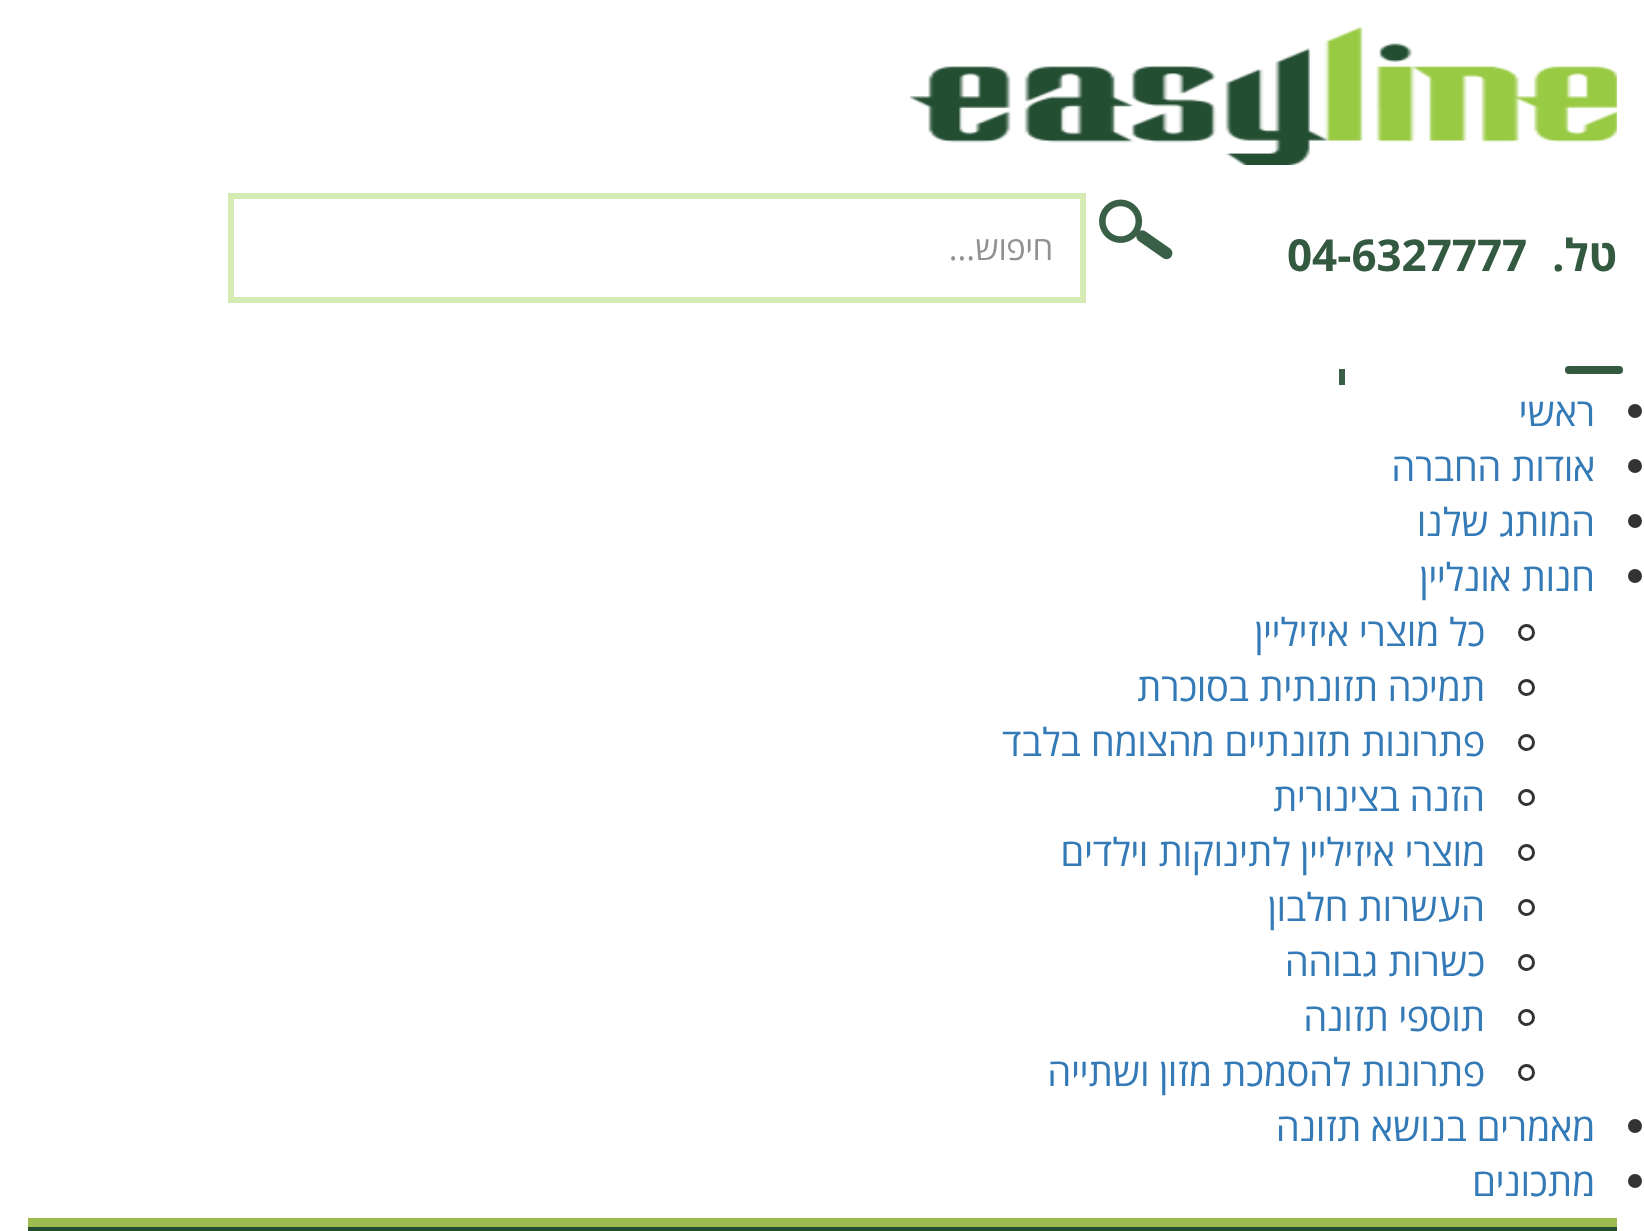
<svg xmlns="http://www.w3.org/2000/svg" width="1644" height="1231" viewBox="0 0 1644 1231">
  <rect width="100%" height="100%" fill="#ffffff"/>
  <image x="910" y="27" width="707" height="138" href="img1.png"/>
  <text x="1617" y="271" font-family="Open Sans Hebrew" font-size="44" font-weight="bold" direction="rtl" fill="#335940">טל.</text>
  <text x="1287" y="271" font-family="Open Sans Hebrew" font-size="44" font-weight="bold" fill="#335940">04-6327777</text>
  <image x="1099" y="199" width="74" height="61" href="img2.png"/>
  <rect x="231" y="196" width="852" height="104" fill="none" stroke="#d6eab4" stroke-width="6"/>
  <text x="1053" y="260" font-family="Open Sans Hebrew" font-size="33" direction="rtl" fill="#919191">חיפוש...</text>
  <rect x="1565" y="366" width="58" height="8" rx="4" fill="#335940"/>
  <rect x="1339" y="369" width="6" height="16" fill="#396047"/>
  <circle cx="1635" cy="411" r="7" fill="#333333"/>
  <text x="1595" y="426" font-family="Open Sans Hebrew" font-size="38.5" direction="rtl" fill="#337ab7">ראשי</text>
  <circle cx="1635" cy="466" r="7" fill="#333333"/>
  <text x="1595" y="481" font-family="Open Sans Hebrew" font-size="38.5" direction="rtl" fill="#337ab7">אודות החברה</text>
  <circle cx="1635" cy="521" r="7" fill="#333333"/>
  <text x="1595" y="536" font-family="Open Sans Hebrew" font-size="38.5" direction="rtl" fill="#337ab7">המותג שלנו</text>
  <circle cx="1635" cy="576" r="7" fill="#333333"/>
  <text x="1595" y="591" font-family="Open Sans Hebrew" font-size="38.5" direction="rtl" fill="#337ab7">חנות אונליין</text>
  <circle cx="1526.5" cy="632.5" r="7" fill="none" stroke="#333333" stroke-width="3"/>
  <text x="1485" y="646" font-family="Open Sans Hebrew" font-size="38.5" direction="rtl" fill="#337ab7">כל מוצרי איזיליין</text>
  <circle cx="1526.5" cy="687.5" r="7" fill="none" stroke="#333333" stroke-width="3"/>
  <text x="1485" y="701" font-family="Open Sans Hebrew" font-size="38.5" direction="rtl" fill="#337ab7">תמיכה תזונתית בסוכרת</text>
  <circle cx="1526.5" cy="742.5" r="7" fill="none" stroke="#333333" stroke-width="3"/>
  <text x="1485" y="756" font-family="Open Sans Hebrew" font-size="38.5" direction="rtl" fill="#337ab7">פתרונות תזונתיים מהצומח בלבד</text>
  <circle cx="1526.5" cy="797.5" r="7" fill="none" stroke="#333333" stroke-width="3"/>
  <text x="1485" y="811" font-family="Open Sans Hebrew" font-size="38.5" direction="rtl" fill="#337ab7">הזנה בצינורית</text>
  <circle cx="1526.5" cy="852.5" r="7" fill="none" stroke="#333333" stroke-width="3"/>
  <text x="1485" y="866" font-family="Open Sans Hebrew" font-size="38.5" direction="rtl" fill="#337ab7">מוצרי איזיליין לתינוקות וילדים</text>
  <circle cx="1526.5" cy="907.5" r="7" fill="none" stroke="#333333" stroke-width="3"/>
  <text x="1485" y="921" font-family="Open Sans Hebrew" font-size="38.5" direction="rtl" fill="#337ab7">העשרות חלבון</text>
  <circle cx="1526.5" cy="962.5" r="7" fill="none" stroke="#333333" stroke-width="3"/>
  <text x="1485" y="976" font-family="Open Sans Hebrew" font-size="38.5" direction="rtl" fill="#337ab7">כשרות גבוהה</text>
  <circle cx="1526.5" cy="1017.5" r="7" fill="none" stroke="#333333" stroke-width="3"/>
  <text x="1485" y="1031" font-family="Open Sans Hebrew" font-size="38.5" direction="rtl" fill="#337ab7">תוספי תזונה</text>
  <circle cx="1526.5" cy="1072.5" r="7" fill="none" stroke="#333333" stroke-width="3"/>
  <text x="1485" y="1086" font-family="Open Sans Hebrew" font-size="38.5" direction="rtl" fill="#337ab7">פתרונות להסמכת מזון ושתייה</text>
  <circle cx="1635" cy="1126" r="7" fill="#333333"/>
  <text x="1595" y="1141" font-family="Open Sans Hebrew" font-size="38.5" direction="rtl" fill="#337ab7">מאמרים בנושא תזונה</text>
  <circle cx="1635" cy="1181" r="7" fill="#333333"/>
  <text x="1595" y="1196" font-family="Open Sans Hebrew" font-size="38.5" direction="rtl" fill="#337ab7">מתכונים</text>
  <rect x="28" y="1218" width="1589" height="9" fill="#9dbb4f"/>
  <rect x="28" y="1227" width="1589" height="4" fill="#234e32"/>
</svg>
